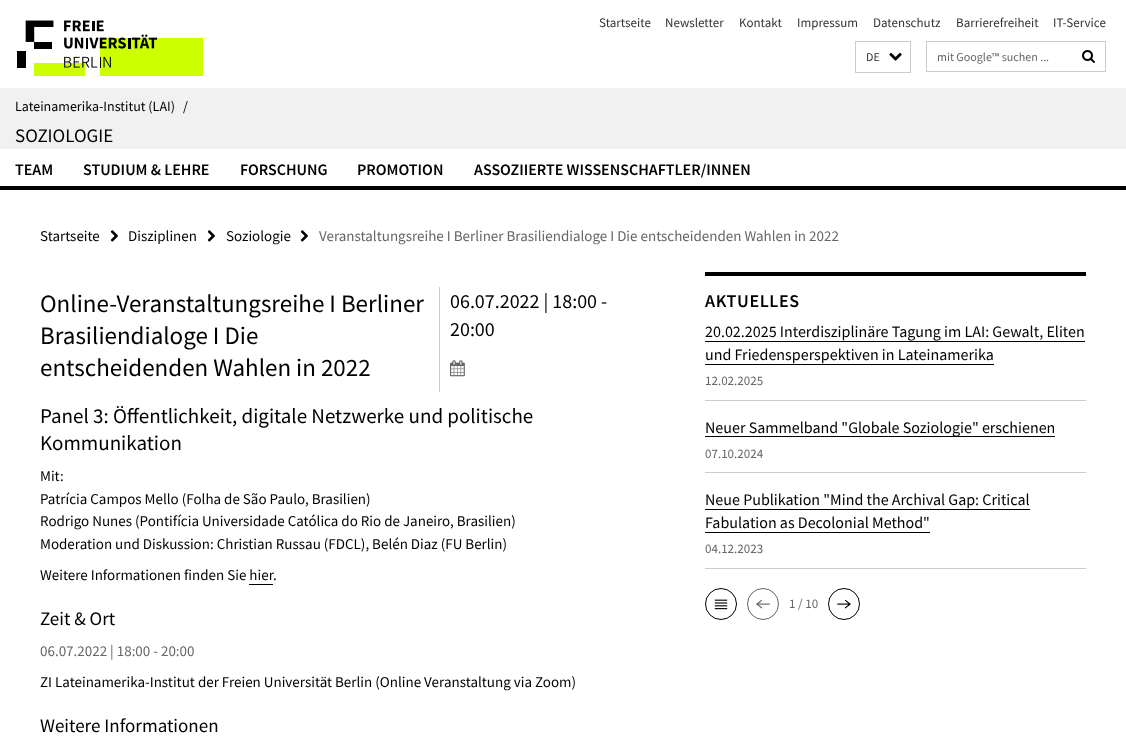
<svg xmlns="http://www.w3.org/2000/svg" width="1126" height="745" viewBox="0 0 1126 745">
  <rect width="100%" height="100%" fill="#ffffff"/>
  <image x="17" y="20" width="186" height="56" href="img1.png"/>
  <text x="599" y="27" font-family="Source Sans Pro" font-size="13" fill="#333333">Startseite</text>
  <text x="665" y="27" font-family="Source Sans Pro" font-size="13" fill="#333333">Newsletter</text>
  <text x="739" y="27" font-family="Source Sans Pro" font-size="13" fill="#333333">Kontakt</text>
  <text x="797" y="27" font-family="Source Sans Pro" font-size="13" fill="#333333">Impressum</text>
  <text x="873" y="27" font-family="Source Sans Pro" font-size="13" fill="#333333">Datenschutz</text>
  <text x="956" y="27" font-family="Source Sans Pro" font-size="13" fill="#333333">Barrierefreiheit</text>
  <text x="1053" y="27" font-family="Source Sans Pro" font-size="13" fill="#333333">IT-Service</text>
  <rect x="855.5" y="41.5" width="55" height="31" fill="none" stroke="#cccccc"/>
  <text x="866" y="61" font-family="Source Sans Pro" font-size="12" fill="#333333">DE</text>
  <image x="889" y="53" width="13" height="8" href="img2.png"/>
  <rect x="926.5" y="41.5" width="179" height="30" fill="none" stroke="#cccccc"/>
  <text x="937" y="61" font-family="Source Sans Pro" font-size="12" fill="#666666">mit Google™ suchen ...</text>
  <image x="1082" y="50" width="13" height="13" href="img3.png"/>
  <rect x="0" y="88" width="1126" height="61" fill="#f1f1f1"/>
  <text x="15" y="111" font-family="Source Sans Pro" font-size="14" fill="#000000">Lateinamerika-Institut (LAI)</text>
  <text x="183" y="111" font-family="Source Sans Pro" font-size="14" fill="#000000">/</text>
  <text x="15" y="142" font-family="Source Sans Pro" font-size="19" fill="#000000">SOZIOLOGIE</text>
  <rect x="0" y="186" width="1126" height="4" fill="#000000"/>
  <text x="15" y="175" font-family="Source Sans Pro" font-size="16" font-weight="600" fill="#000000">TEAM</text>
  <text x="83" y="175" font-family="Source Sans Pro" font-size="16" font-weight="600" fill="#000000">STUDIUM &amp; LEHRE</text>
  <text x="240" y="175" font-family="Source Sans Pro" font-size="16" font-weight="600" fill="#000000">FORSCHUNG</text>
  <text x="357" y="175" font-family="Source Sans Pro" font-size="16" font-weight="600" fill="#000000">PROMOTION</text>
  <text x="474" y="175" font-family="Source Sans Pro" font-size="16" font-weight="600" fill="#000000">ASSOZIIERTE WISSENSCHAFTLER/INNEN</text>
  <text x="40" y="241" font-family="Source Sans Pro" font-size="15" fill="#000000">Startseite</text>
  <image x="110" y="230" width="8" height="12" href="img4.png"/>
  <text x="128" y="241" font-family="Source Sans Pro" font-size="15" fill="#000000">Disziplinen</text>
  <image x="207" y="230" width="8" height="12" href="img4.png"/>
  <text x="226" y="241" font-family="Source Sans Pro" font-size="15" fill="#000000">Soziologie</text>
  <image x="300" y="230" width="8" height="12" href="img4.png"/>
  <text x="319" y="241" font-family="Source Sans Pro" font-size="15" fill="#666666">Veranstaltungsreihe I Berliner Brasiliendialoge I Die entscheidenden Wahlen in 2022</text>
  <rect x="439" y="287" width="1" height="105" fill="#cccccc"/>
  <text x="40" y="312" font-family="Source Sans Pro" font-size="25" fill="#000000">Online-Veranstaltungsreihe I Berliner</text>
  <text x="40" y="344" font-family="Source Sans Pro" font-size="25" fill="#000000">Brasiliendialoge I Die</text>
  <text x="40" y="376" font-family="Source Sans Pro" font-size="25" fill="#000000">entscheidenden Wahlen in 2022</text>
  <text x="450" y="308" font-family="Source Sans Pro" font-size="20" fill="#000000">06.07.2022 | 18:00 -</text>
  <text x="450" y="336" font-family="Source Sans Pro" font-size="20" fill="#000000">20:00</text>
  <image x="450" y="360" width="15" height="17" href="img5.png"/>
  <text x="40" y="423" font-family="Source Sans Pro" font-size="21" fill="#000000">Panel 3: Öffentlichkeit, digitale Netzwerke und politische</text>
  <text x="40" y="450" font-family="Source Sans Pro" font-size="21" fill="#000000">Kommunikation</text>
  <text x="40" y="481" font-family="Source Sans Pro" font-size="15" fill="#000000">Mit:</text>
  <text x="40" y="504" font-family="Source Sans Pro" font-size="15" fill="#000000">Patrícia Campos Mello (Folha de São Paulo, Brasilien)</text>
  <text x="40" y="526" font-family="Source Sans Pro" font-size="15" fill="#000000">Rodrigo Nunes (Pontifícia Universidade Católica do Rio de Janeiro, Brasilien)</text>
  <text x="40" y="549" font-family="Source Sans Pro" font-size="15" fill="#000000">Moderation und Diskussion: Christian Russau (FDCL), Belén Diaz (FU Berlin)</text>
  <text x="40" y="580" font-family="Source Sans Pro" font-size="15" fill="#000000">Weitere Informationen finden Sie hier</text>
  <text x="273" y="580" font-family="Source Sans Pro" font-size="15" fill="#000000">.</text>
  <rect x="249" y="584" width="24" height="1" fill="#000000"/>
  <text x="40" y="625" font-family="Source Sans Pro" font-size="19" fill="#000000">Zeit &amp; Ort</text>
  <text x="40" y="656" font-family="Source Sans Pro" font-size="15" fill="#666666">06.07.2022 | 18:00 - 20:00</text>
  <text x="40" y="687" font-family="Source Sans Pro" font-size="15" fill="#000000">ZI Lateinamerika-Institut der Freien Universität Berlin (Online Veranstaltung via Zoom)</text>
  <text x="40" y="732" font-family="Source Sans Pro" font-size="19" fill="#000000">Weitere Informationen</text>
  <rect x="705" y="272" width="381" height="4" fill="#000000"/>
  <text x="705" y="307" font-family="Source Sans Pro" font-size="18" font-weight="600" letter-spacing="0.6" fill="#000000">AKTUELLES</text>
  <rect x="705" y="400" width="381" height="1" fill="#cccccc"/>
  <text x="705" y="337" font-family="Source Sans Pro" font-size="16" fill="#000000">20.02.2025 Interdisziplinäre Tagung im LAI: Gewalt, Eliten</text>
  <rect x="705" y="341" width="380" height="1" fill="#000000"/>
  <text x="705" y="360" font-family="Source Sans Pro" font-size="16" fill="#000000">und Friedensperspektiven in Lateinamerika</text>
  <rect x="705" y="364" width="289" height="1" fill="#000000"/>
  <text x="705" y="385" font-family="Source Sans Pro" font-size="13" fill="#666666">12.02.2025</text>
  <rect x="705" y="472" width="381" height="1" fill="#cccccc"/>
  <rect x="705" y="436" width="350" height="1" fill="#000000"/>
  <text x="705" y="433" font-family="Source Sans Pro" font-size="16" fill="#000000">Neuer Sammelband "Globale Soziologie" erschienen</text>
  <text x="705" y="458" font-family="Source Sans Pro" font-size="13" fill="#666666">07.10.2024</text>
  <rect x="705" y="568" width="381" height="1" fill="#cccccc"/>
  <text x="705" y="505" font-family="Source Sans Pro" font-size="16" fill="#000000">Neue Publikation "Mind the Archival Gap: Critical</text>
  <rect x="705" y="509" width="325" height="1" fill="#000000"/>
  <text x="705" y="528" font-family="Source Sans Pro" font-size="16" fill="#000000">Fabulation as Decolonial Method"</text>
  <rect x="705" y="532" width="225" height="1" fill="#000000"/>
  <text x="705" y="553" font-family="Source Sans Pro" font-size="13" fill="#666666">04.12.2023</text>
  <circle cx="721" cy="604" r="15.5" fill="none" stroke="#000000"/>
  <image x="714" y="599" width="14" height="11" href="img6.png"/>
  <circle cx="763" cy="604" r="15.5" fill="none" stroke="#666666"/>
  <image x="756" y="599" width="14" height="10" href="img7.png"/>
  <text x="789" y="608" font-family="Source Sans Pro" font-size="13" fill="#666666">1 / 10</text>
  <circle cx="844" cy="604" r="15.5" fill="none" stroke="#000000"/>
  <image x="837" y="599" width="14" height="10" href="img8.png"/>
</svg>
